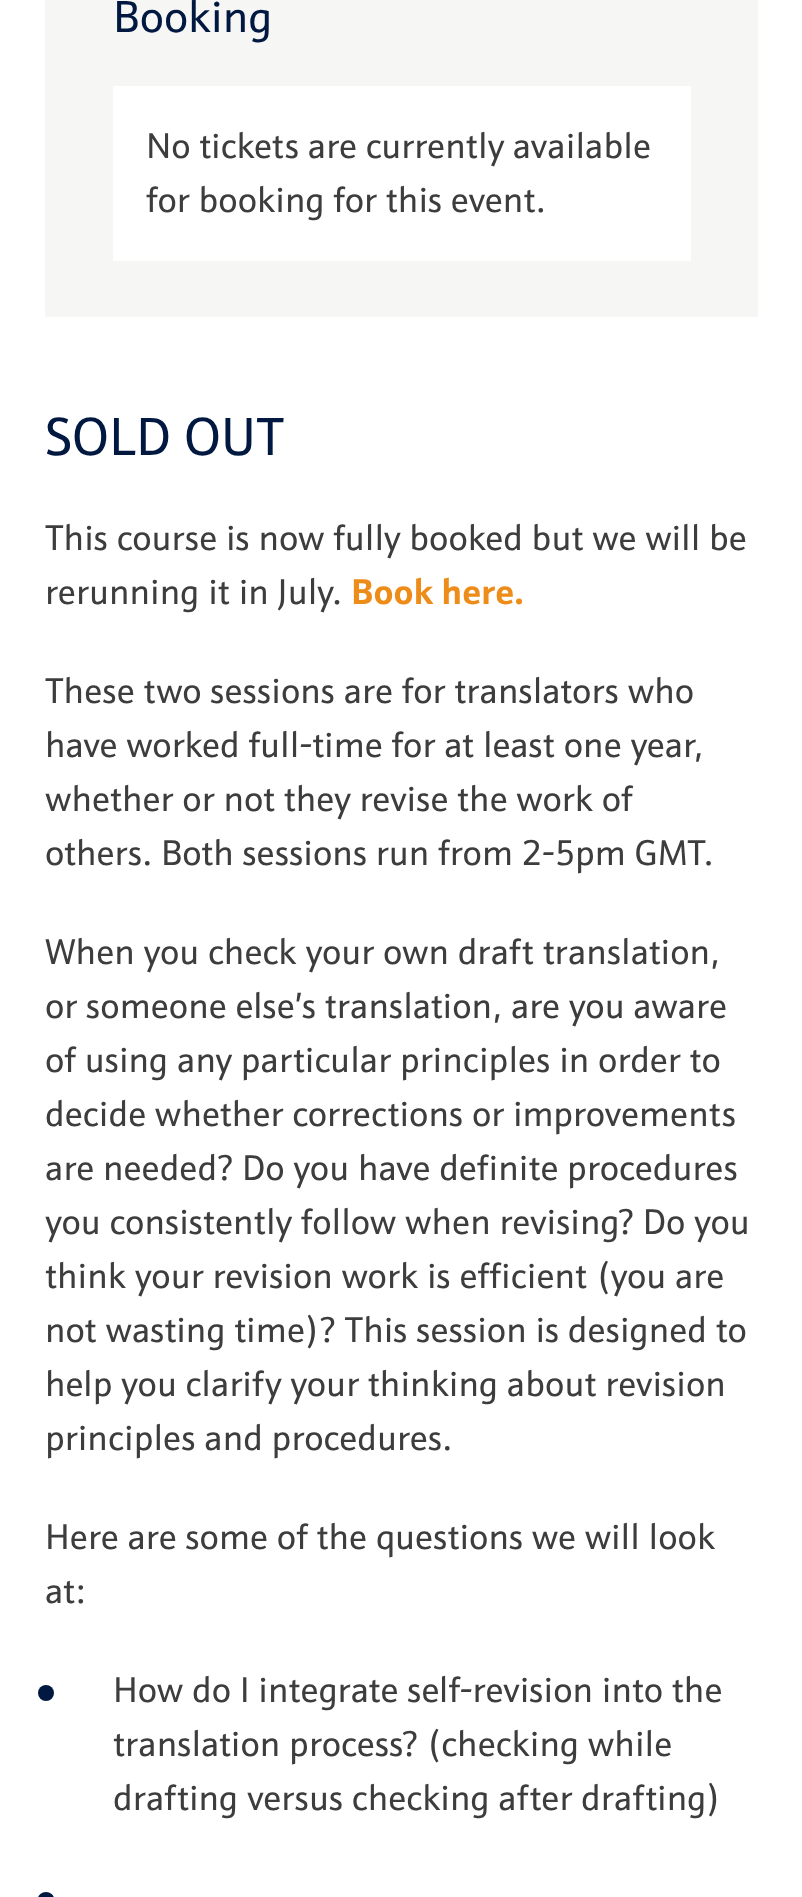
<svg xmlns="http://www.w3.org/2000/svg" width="802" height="1897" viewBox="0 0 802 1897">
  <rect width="100%" height="100%" fill="#ffffff"/>
  <rect x="45" y="0" width="713" height="317" fill="#f6f7f5"/>
  <text x="113" y="32" font-family="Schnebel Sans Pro" font-size="45" fill="#011841">Booking</text>
  <rect x="113" y="86" width="578" height="175" fill="#ffffff"/>
  <text x="146" y="158" font-family="Schnebel Sans Pro" font-size="36" fill="#3d3d3d">No tickets are currently available</text>
  <text x="146" y="212" font-family="Schnebel Sans Pro" font-size="36" fill="#3d3d3d">for booking for this event.</text>
  <text x="45" y="455" font-family="Schnebel Sans Pro" font-size="54" fill="#011841">SOLD OUT</text>
  <text x="45" y="550" font-family="Schnebel Sans Pro" font-size="36" fill="#3d3d3d">This course is now fully booked but we will be</text>
  <text x="45" y="604" font-family="Schnebel Sans Pro" font-size="36" fill="#3d3d3d">rerunning it in July.</text>
  <text x="351" y="604" font-family="Schnebel Sans Pro" font-size="36" font-weight="bold" fill="#ed8c18">Book here.</text>
  <text x="45" y="703" font-family="Schnebel Sans Pro" font-size="36" fill="#3d3d3d">These two sessions are for translators who</text>
  <text x="45" y="757" font-family="Schnebel Sans Pro" font-size="36" fill="#3d3d3d">have worked full-time for at least one year,</text>
  <text x="45" y="811" font-family="Schnebel Sans Pro" font-size="36" fill="#3d3d3d">whether or not they revise the work of</text>
  <text x="45" y="865" font-family="Schnebel Sans Pro" font-size="36" fill="#3d3d3d">others. Both sessions run from 2-5pm GMT.</text>
  <text x="45" y="964" font-family="Schnebel Sans Pro" font-size="36" fill="#3d3d3d">When you check your own draft translation,</text>
  <text x="45" y="1018" font-family="Schnebel Sans Pro" font-size="36" fill="#3d3d3d">or someone else’s translation, are you aware</text>
  <text x="45" y="1072" font-family="Schnebel Sans Pro" font-size="36" fill="#3d3d3d">of using any particular principles in order to</text>
  <text x="45" y="1126" font-family="Schnebel Sans Pro" font-size="36" fill="#3d3d3d">decide whether corrections or improvements</text>
  <text x="45" y="1180" font-family="Schnebel Sans Pro" font-size="36" fill="#3d3d3d">are needed? Do you have definite procedures</text>
  <text x="45" y="1234" font-family="Schnebel Sans Pro" font-size="36" fill="#3d3d3d">you consistently follow when revising? Do you</text>
  <text x="45" y="1288" font-family="Schnebel Sans Pro" font-size="36" fill="#3d3d3d">think your revision work is efficient (you are</text>
  <text x="45" y="1342" font-family="Schnebel Sans Pro" font-size="36" fill="#3d3d3d">not wasting time)? This session is designed to</text>
  <text x="45" y="1396" font-family="Schnebel Sans Pro" font-size="36" fill="#3d3d3d">help you clarify your thinking about revision</text>
  <text x="45" y="1450" font-family="Schnebel Sans Pro" font-size="36" fill="#3d3d3d">principles and procedures.</text>
  <text x="45" y="1549" font-family="Schnebel Sans Pro" font-size="36" fill="#3d3d3d">Here are some of the questions we will look</text>
  <text x="45" y="1603" font-family="Schnebel Sans Pro" font-size="36" fill="#3d3d3d">at:</text>
  <circle cx="46" cy="1693" r="8" fill="#011841"/>
  <text x="113" y="1702" font-family="Schnebel Sans Pro" font-size="36" fill="#3d3d3d">How do I integrate self-revision into the</text>
  <text x="113" y="1756" font-family="Schnebel Sans Pro" font-size="36" fill="#3d3d3d">translation process? (checking while</text>
  <text x="113" y="1810" font-family="Schnebel Sans Pro" font-size="36" fill="#3d3d3d">drafting versus checking after drafting)</text>
  <rect x="38" y="1892" width="16" height="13" rx="8" fill="#011841"/>
</svg>
